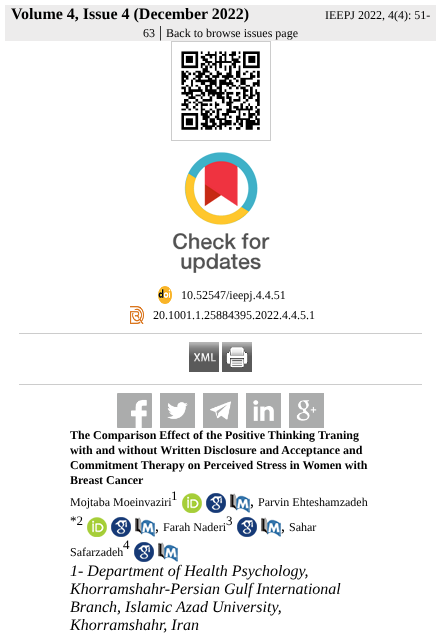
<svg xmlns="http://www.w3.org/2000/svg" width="441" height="644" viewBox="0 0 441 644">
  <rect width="100%" height="100%" fill="#ffffff"/>
  <rect x="5" y="5" width="431" height="36" fill="#edecec"/>
  <text x="11" y="19" font-family="Liberation Serif" font-size="16" font-weight="bold" fill="#000000">Volume 4, Issue 4 (December 2022)</text>
  <text x="325" y="19" font-family="Liberation Serif" font-size="12" fill="#000000">IEEPJ 2022, 4(4): 51-</text>
  <text x="143" y="37" font-family="Liberation Serif" font-size="12" fill="#000000">63</text>
  <text x="159" y="37" font-family="Liberation Serif" font-size="16" fill="#000000">|</text>
  <text x="166" y="37" font-family="Liberation Serif" font-size="12" fill="#000000">Back to browse issues page</text>
  <rect x="171.5" y="41.5" width="99" height="99" fill="none" stroke="#cccccc"/>
  <image x="181" y="51" width="79" height="79" href="img1.png"/>
  <image x="172" y="152" width="98" height="121" href="img2.png"/>
  <image x="158" y="286" width="14" height="18" href="img3.png"/>
  <text x="181" y="299" font-family="Liberation Serif" font-size="12" fill="#000000">10.52547/ieepj.4.4.51</text>
  <image x="130" y="306" width="14" height="18" href="img4.png"/>
  <text x="153" y="319" font-family="Liberation Serif" font-size="12" fill="#000000">20.1001.1.25884395.2022.4.4.5.1</text>
  <rect x="19" y="333" width="403" height="1" fill="#cccccc"/>
  <image x="189" y="342" width="30" height="30" href="img5.png"/>
  <image x="222" y="342" width="30" height="30" href="img6.png"/>
  <rect x="19" y="384" width="403" height="1" fill="#cccccc"/>
  <image x="117" y="393" width="35" height="35" href="img7.png"/>
  <image x="160" y="393" width="35" height="35" href="img8.png"/>
  <image x="203" y="393" width="35" height="35" href="img9.png"/>
  <image x="246" y="393" width="35" height="35" href="img10.png"/>
  <image x="289" y="393" width="35" height="35" href="img11.png"/>
  <text x="70" y="439" font-family="Liberation Serif" font-size="12" font-weight="bold" fill="#000000">The Comparison Effect of the Positive Thinking Traning</text>
  <text x="70" y="454" font-family="Liberation Serif" font-size="12" font-weight="bold" fill="#000000">with and without Written Disclosure and Acceptance and</text>
  <text x="70" y="469" font-family="Liberation Serif" font-size="12" font-weight="bold" fill="#000000">Commitment Therapy on Perceived Stress in Women with</text>
  <text x="70" y="484" font-family="Liberation Serif" font-size="12" font-weight="bold" fill="#000000">Breast Cancer</text>
  <text x="70" y="506" font-family="Liberation Serif" font-size="12" fill="#000000">Mojtaba Moeinvaziri</text>
  <text x="171" y="500" font-family="Liberation Serif" font-size="13" fill="#000000">1</text>
  <image x="182" y="493" width="20" height="20" href="img12.png"/>
  <image x="206" y="493" width="20" height="20" href="img13.png"/>
  <image x="230" y="493" width="20" height="20" href="img14.png"/>
  <text x="250" y="506" font-family="Liberation Serif" font-size="16" fill="#000000">,</text>
  <text x="258" y="506" font-family="Liberation Serif" font-size="12" fill="#000000">Parvin Ehteshamzadeh</text>
  <text x="70" y="525" font-family="Liberation Serif" font-size="13" fill="#000000">*2</text>
  <image x="87" y="517" width="20" height="20" href="img12.png"/>
  <image x="111" y="517" width="20" height="20" href="img13.png"/>
  <image x="135" y="517" width="20" height="20" href="img14.png"/>
  <text x="155" y="531" font-family="Liberation Serif" font-size="16" fill="#000000">,</text>
  <text x="163" y="531" font-family="Liberation Serif" font-size="12" fill="#000000">Farah Naderi</text>
  <text x="226" y="525" font-family="Liberation Serif" font-size="13" fill="#000000">3</text>
  <image x="237" y="517" width="20" height="20" href="img13.png"/>
  <image x="261" y="517" width="20" height="20" href="img14.png"/>
  <text x="281" y="531" font-family="Liberation Serif" font-size="16" fill="#000000">,</text>
  <text x="289" y="531" font-family="Liberation Serif" font-size="12" fill="#000000">Sahar</text>
  <text x="70" y="556" font-family="Liberation Serif" font-size="12" fill="#000000">Safarzadeh</text>
  <text x="123" y="549" font-family="Liberation Serif" font-size="13" fill="#000000">4</text>
  <image x="134" y="542" width="20" height="20" href="img13.png"/>
  <image x="158" y="542" width="20" height="20" href="img14.png"/>
  <text x="70" y="576" font-family="Liberation Serif" font-size="16" font-style="italic" fill="#000000">1- Department of Health Psychology,</text>
  <text x="70" y="594" font-family="Liberation Serif" font-size="16" font-style="italic" fill="#000000">Khorramshahr-Persian Gulf International</text>
  <text x="70" y="612" font-family="Liberation Serif" font-size="16" font-style="italic" fill="#000000">Branch, Islamic Azad University,</text>
  <text x="70" y="630" font-family="Liberation Serif" font-size="16" font-style="italic" fill="#000000">Khorramshahr, Iran</text>
</svg>
